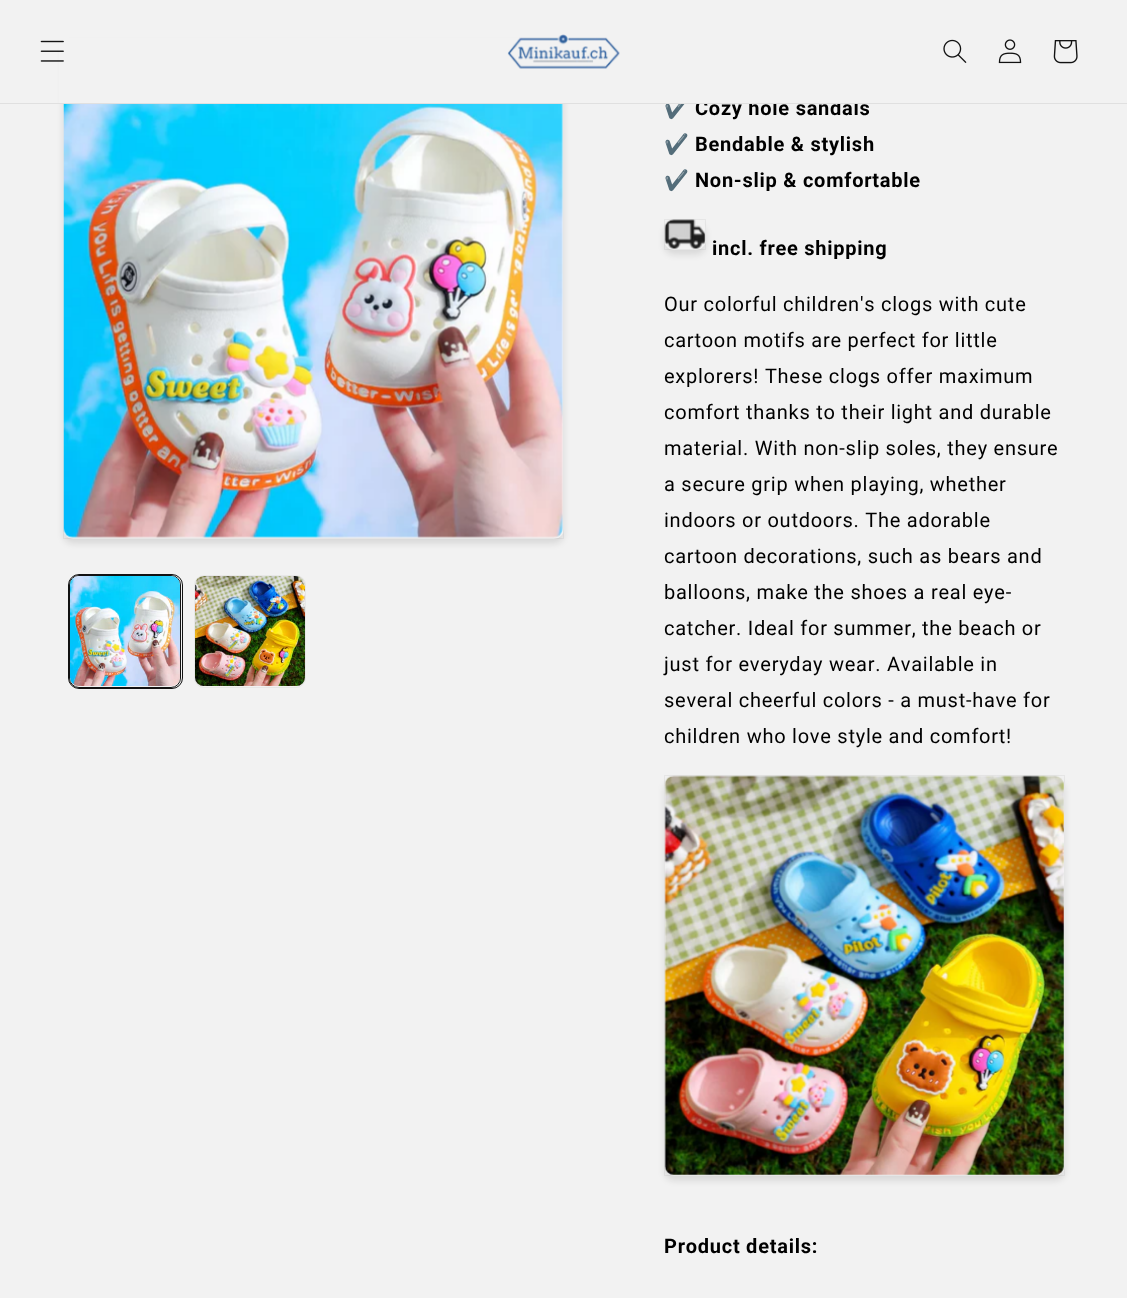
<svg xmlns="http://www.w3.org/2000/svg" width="1127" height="1298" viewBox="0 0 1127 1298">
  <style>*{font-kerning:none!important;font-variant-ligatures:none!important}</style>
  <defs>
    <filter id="blur1" x="-50%" y="-200%" width="200%" height="500%"><feGaussianBlur stdDeviation="3"/></filter>
    <clipPath id="clip1"><path d="M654 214H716V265H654ZM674 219H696C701.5 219 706 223.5 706 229V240C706 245.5 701.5 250 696 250H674C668.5 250 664 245.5 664 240V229C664 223.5 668.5 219 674 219Z" clip-rule="evenodd"/></clipPath>
    <clipPath id="clip2"><path d="M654 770H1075V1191H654ZM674 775H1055C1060.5 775 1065 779.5 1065 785V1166C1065 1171.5 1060.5 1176 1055 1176H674C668.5 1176 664 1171.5 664 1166V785C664 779.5 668.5 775 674 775Z" clip-rule="evenodd"/></clipPath>
  </defs>
  <rect width="100%" height="100%" fill="#f2f2f2"/>
  <rect x="63" y="43" width="501" height="501" rx="10" fill="#121212" fill-opacity="0.1" filter="url(#blur1)"/>
  <rect x="63" y="38" width="501" height="501" rx="10" fill="#f2f2f2"/>
  <rect x="63.5" y="38.5" width="500" height="500" fill="none" stroke="#121212" stroke-opacity="0.05"/>
  <text x="664" y="115" font-family="Noto Color Emoji" font-size="20" font-weight="bold" letter-spacing="0.75" fill="#c86c59">✔</text>
  <text x="695" y="115" font-family="Roboto" font-size="20" font-weight="bold" letter-spacing="0.75" fill="#000000">Cozy hole sandals</text>
  <rect x="59" y="38" width="799" height="65" fill="#f2f2f2"/>
  <rect x="0" y="103" width="1127" height="1" fill="#e0e0e0"/>
  <image x="40" y="40" width="24" height="22" href="img1.png"/>
  <image x="507" y="34" width="113" height="35" href="img2.png"/>
  <image x="943" y="39" width="24" height="24" href="img3.png"/>
  <image x="998" y="39" width="24" height="25" href="img4.png"/>
  <image x="1053" y="40" width="25" height="24" href="img5.png"/>
  <image x="63" y="104" width="500" height="434" href="img6.png"/>
  <rect x="68.5" y="574.5" width="114" height="114" rx="10.5" fill="none" stroke="#121212"/>
  <rect x="69.5" y="575.5" width="111" height="112" rx="9.5" fill="none" stroke="#121212"/>
  <image x="70" y="576" width="110" height="110" href="img7.png"/>
  <rect x="194.5" y="575.5" width="111" height="112" rx="9.5" fill="none" stroke="#e7e7e7"/>
  <image x="195" y="576" width="110" height="110" href="img8.png"/>
  <text x="664" y="151" font-family="Noto Color Emoji" font-size="20" font-weight="bold" letter-spacing="0.75" fill="#ff2a00">✔</text>
  <text x="695" y="151" font-family="Roboto" font-size="20" font-weight="bold" letter-spacing="0.75" fill="#000000">Bendable &amp; stylish</text>
  <text x="664" y="187" font-family="Noto Color Emoji" font-size="20" font-weight="bold" letter-spacing="0.75" fill="#ff2a00">✔</text>
  <text x="695" y="187" font-family="Roboto" font-size="20" font-weight="bold" letter-spacing="0.75" fill="#000000">Non-slip &amp; comfortable</text>
  <g clip-path="url(#clip1)">
    <rect x="664" y="224" width="42" height="31" rx="10" fill="#121212" fill-opacity="0.1" filter="url(#blur1)"/>
  </g>
  <rect x="664.5" y="219.5" width="41" height="30" fill="none" stroke="#121212" stroke-opacity="0.05"/>
  <image x="664" y="219" width="42" height="30" href="img9.png"/>
  <text x="712" y="255" font-family="Roboto" font-size="20" font-weight="bold" letter-spacing="0.75" fill="#000000">incl. free shipping</text>
  <text x="664" y="311" font-family="Roboto" font-size="20" letter-spacing="0.75" fill="#000000">Our colorful children's clogs with cute</text>
  <text x="664" y="347" font-family="Roboto" font-size="20" letter-spacing="0.75" fill="#000000">cartoon motifs are perfect for little</text>
  <text x="664" y="383" font-family="Roboto" font-size="20" letter-spacing="0.75" fill="#000000">explorers! These clogs offer maximum</text>
  <text x="664" y="419" font-family="Roboto" font-size="20" letter-spacing="0.75" fill="#000000">comfort thanks to their light and durable</text>
  <text x="664" y="455" font-family="Roboto" font-size="20" letter-spacing="0.75" fill="#000000">material. With non-slip soles, they ensure</text>
  <text x="664" y="491" font-family="Roboto" font-size="20" letter-spacing="0.75" fill="#000000">a secure grip when playing, whether</text>
  <text x="664" y="527" font-family="Roboto" font-size="20" letter-spacing="0.75" fill="#000000">indoors or outdoors. The adorable</text>
  <text x="664" y="563" font-family="Roboto" font-size="20" letter-spacing="0.75" fill="#000000">cartoon decorations, such as bears and</text>
  <text x="664" y="599" font-family="Roboto" font-size="20" letter-spacing="0.75" fill="#000000">balloons, make the shoes a real eye-</text>
  <text x="664" y="635" font-family="Roboto" font-size="20" letter-spacing="0.75" fill="#000000">catcher. Ideal for summer, the beach or</text>
  <text x="664" y="671" font-family="Roboto" font-size="20" letter-spacing="0.75" fill="#000000">just for everyday wear. Available in</text>
  <text x="664" y="707" font-family="Roboto" font-size="20" letter-spacing="0.75" fill="#000000">several cheerful colors - a must-have for</text>
  <text x="664" y="743" font-family="Roboto" font-size="20" letter-spacing="0.75" fill="#000000">children who love style and comfort!</text>
  <g clip-path="url(#clip2)">
    <rect x="664" y="780" width="401" height="401" rx="10" fill="#121212" fill-opacity="0.1" filter="url(#blur1)"/>
  </g>
  <rect x="664.5" y="775.5" width="400" height="400" fill="none" stroke="#121212" stroke-opacity="0.05"/>
  <image x="664" y="775" width="400" height="400" href="img10.png"/>
  <text x="664" y="1253" font-family="Roboto" font-size="20" font-weight="bold" letter-spacing="0.75" fill="#000000">Product details:</text>
</svg>
